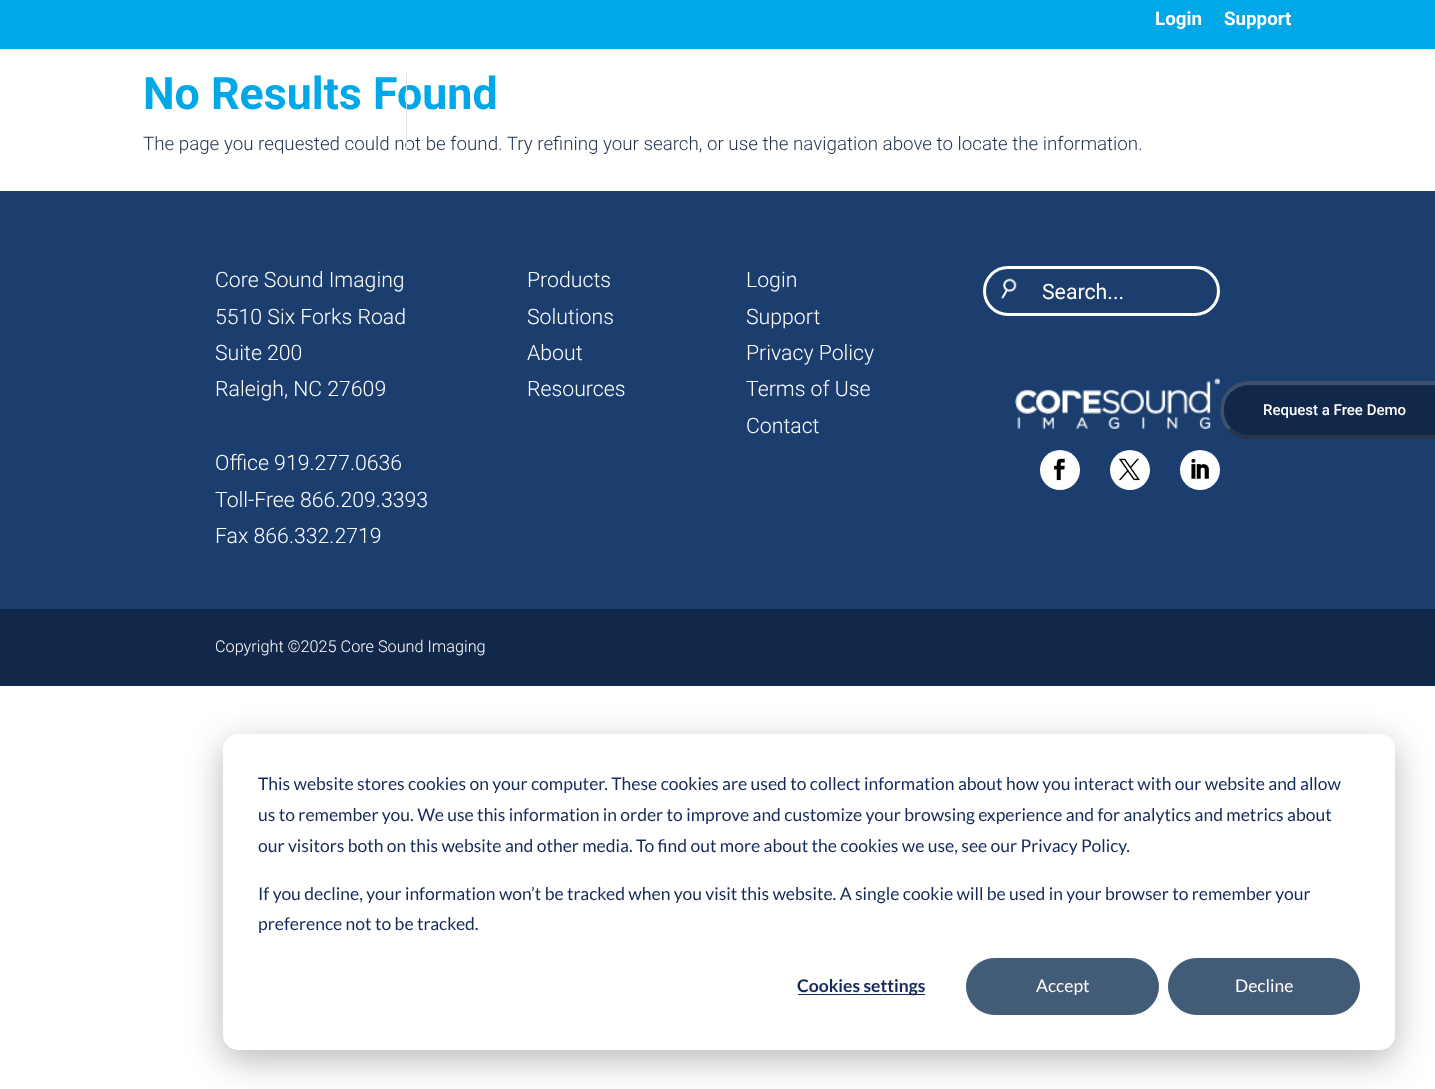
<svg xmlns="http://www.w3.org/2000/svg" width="1435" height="1089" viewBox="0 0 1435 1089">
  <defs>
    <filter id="blur1" x="-50%" y="-200%" width="200%" height="500%"><feGaussianBlur stdDeviation="17.5"/></filter>
  </defs>
  <rect width="100%" height="100%" fill="#ffffff"/>
  <rect x="0" y="0" width="1435" height="49" fill="#00a8e7"/>
  <text x="1155" y="25" font-family="Roboto" font-size="18.75" font-weight="bold" fill="#ffffff">Login</text>
  <text x="1224" y="25" font-family="Roboto" font-size="18.75" font-weight="bold" fill="#ffffff">Support</text>
  <text x="143" y="109" font-family="Roboto" font-size="44.75" font-weight="bold" fill="#00a8e7">No Results Found</text>
  <text x="143" y="150" font-family="Roboto" font-size="18.75" font-weight="300" fill="#1e2f4c">The page you requested could not be found. Try refining your search, or use the navigation above to locate the information.</text>
  <rect x="406" y="73" width="1" height="78" fill="#e2e2e2"/>
  <rect x="0" y="191" width="1435" height="418" fill="#1b3e6f"/>
  <text x="215" y="287" font-family="Roboto" font-size="21.25" font-weight="300" fill="#ffffff">Core Sound Imaging</text>
  <text x="215" y="324" font-family="Roboto" font-size="21.25" font-weight="300" fill="#ffffff">5510 Six Forks Road</text>
  <text x="215" y="360" font-family="Roboto" font-size="21.25" font-weight="300" fill="#ffffff">Suite 200</text>
  <text x="215" y="396" font-family="Roboto" font-size="21.25" font-weight="300" fill="#ffffff">Raleigh, NC 27609</text>
  <text x="215" y="470" font-family="Roboto" font-size="21.25" font-weight="300" fill="#ffffff">Office 919.277.0636</text>
  <text x="215" y="507" font-family="Roboto" font-size="21.25" font-weight="300" fill="#ffffff">Toll-Free 866.209.3393</text>
  <text x="215" y="543" font-family="Roboto" font-size="21.25" font-weight="300" fill="#ffffff">Fax 866.332.2719</text>
  <text x="527" y="287" font-family="Roboto" font-size="21.25" font-weight="300" fill="#ffffff">Products</text>
  <text x="527" y="324" font-family="Roboto" font-size="21.25" font-weight="300" fill="#ffffff">Solutions</text>
  <text x="527" y="360" font-family="Roboto" font-size="21.25" font-weight="300" fill="#ffffff">About</text>
  <text x="527" y="396" font-family="Roboto" font-size="21.25" font-weight="300" fill="#ffffff">Resources</text>
  <text x="746" y="287" font-family="Roboto" font-size="21.25" font-weight="300" fill="#ffffff">Login</text>
  <text x="746" y="324" font-family="Roboto" font-size="21.25" font-weight="300" fill="#ffffff">Support</text>
  <text x="746" y="360" font-family="Roboto" font-size="21.25" font-weight="300" fill="#ffffff">Privacy Policy</text>
  <text x="746" y="396" font-family="Roboto" font-size="21.25" font-weight="300" fill="#ffffff">Terms of Use</text>
  <text x="746" y="433" font-family="Roboto" font-size="21.25" font-weight="300" fill="#ffffff">Contact</text>
  <rect x="984.5" y="267.5" width="234" height="47" rx="23.5" fill="none" stroke="#ffffff" stroke-width="3"/>
  <image x="1001" y="278" width="16" height="21" href="img1.png"/>
  <text x="1042" y="299" font-family="Roboto" font-size="21.25" fill="#ffffff">Search...</text>
  <image x="1015" y="378" width="205" height="51" href="img2.png"/>
  <circle cx="1060" cy="470" r="20" fill="#ffffff"/>
  <image x="1054" y="458" width="11" height="23" href="img3.png"/>
  <circle cx="1130" cy="470" r="20" fill="#ffffff"/>
  <image x="1118" y="458" width="22" height="23" href="img4.png"/>
  <circle cx="1200" cy="470" r="20" fill="#ffffff"/>
  <image x="1191" y="458" width="18" height="21" href="img5.png"/>
  <rect x="0" y="609" width="1435" height="77" fill="#11284b"/>
  <text x="215" y="652" font-family="Roboto" font-size="16.25" font-weight="300" fill="#ffffff">Copyright ©2025 Core Sound Imaging</text>
  <rect x="1220" y="381" width="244" height="58" rx="29" fill="#11284b"/>
  <path d="M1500.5 391C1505.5 396 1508 403 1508 410C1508 417 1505.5 424 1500.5 429C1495 434 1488.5 437 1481 437H1249C1241.5 437 1235 434 1229.5 429" fill="none" stroke="#293649" stroke-width="3.8"/>
  <path d="M1229.5 429C1224.5 424 1222 417 1222 410C1222 403 1224.5 396 1229.5 391C1235 386 1241.5 383 1249 383H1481C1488.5 383 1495 386 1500.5 391" fill="none" stroke="#3e516d" stroke-width="3.8"/>
  <text x="1263" y="415" font-family="Roboto" font-size="15" font-weight="500" fill="#ffffff">Request a Free Demo</text>
  <rect x="223" y="744" width="1172" height="316" rx="15" fill="#000000" fill-opacity="0.28" filter="url(#blur1)"/>
  <rect x="223" y="734" width="1172" height="316" rx="15" fill="#ffffff"/>
  <text x="258" y="790" font-family="Lato" font-size="17.5" fill="#15295a">This website stores cookies on your computer. These cookies are used to collect information about how you interact with our website and allow</text>
  <text x="258" y="821" font-family="Lato" font-size="17.5" fill="#15295a">us to remember you. We use this information in order to improve and customize your browsing experience and for analytics and metrics about</text>
  <text x="258" y="852" font-family="Lato" font-size="17.5" fill="#15295a">our visitors both on this website and other media. To find out more about the cookies we use, see our Privacy Policy.</text>
  <text x="258" y="900" font-family="Lato" font-size="17.5" fill="#15295a">If you decline, your information won’t be tracked when you visit this website. A single cookie will be used in your browser to remember your</text>
  <text x="258" y="930" font-family="Lato" font-size="17.5" fill="#15295a">preference not to be tracked.</text>
  <rect x="798" y="994" width="127" height="1" fill="#15295a"/>
  <text x="797" y="992" font-family="Lato" font-size="17.5" font-weight="bold" fill="#15295a">Cookies settings</text>
  <rect x="966.5" y="958.5" width="192" height="56" rx="28" fill="#425b76" stroke="#425b76"/>
  <text x="1036" y="992" font-family="Lato" font-size="17.5" fill="#ffffff">Accept</text>
  <rect x="1168.5" y="958.5" width="191" height="56" rx="28" fill="#425b76" stroke="#425b76"/>
  <text x="1235" y="992" font-family="Lato" font-size="17.5" fill="#ffffff">Decline</text>
</svg>
